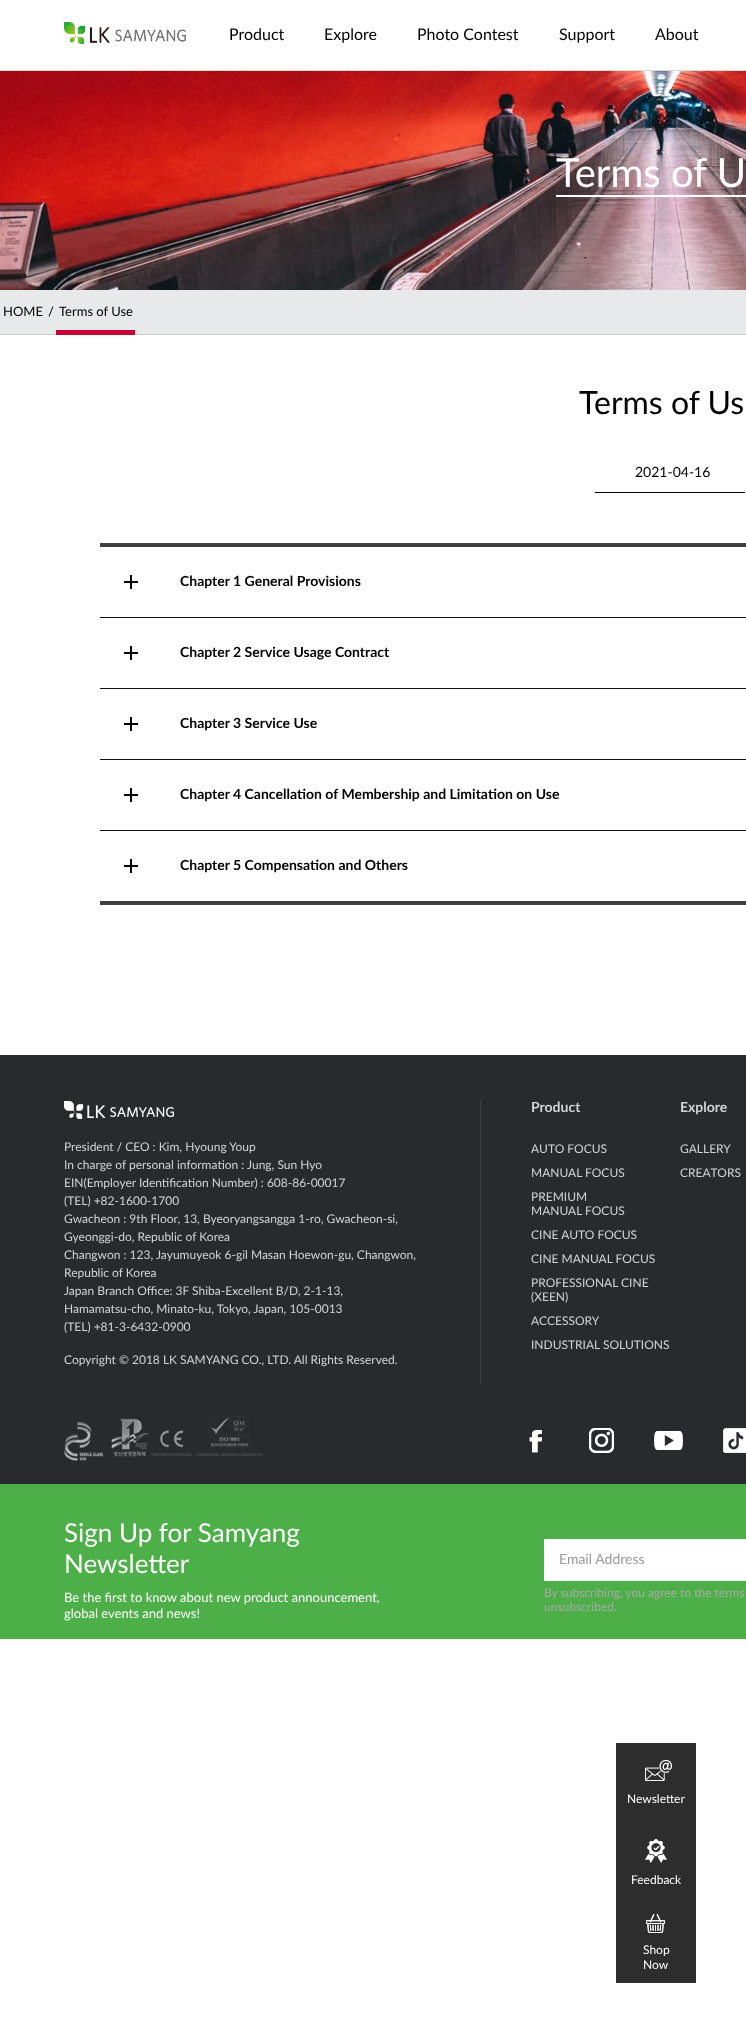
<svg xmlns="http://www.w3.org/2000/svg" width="746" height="2033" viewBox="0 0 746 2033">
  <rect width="100%" height="100%" fill="#ffffff"/>
  <rect x="0" y="70" width="746" height="1" fill="#d8d8d8"/>
  <image x="64" y="22" width="122" height="22" href="img1.png"/>
  <text x="229" y="40" font-family="Lato" font-size="16" fill="#000000">Product</text>
  <text x="324" y="40" font-family="Lato" font-size="16" fill="#000000">Explore</text>
  <text x="417" y="40" font-family="Lato" font-size="16" fill="#000000">Photo Contest</text>
  <text x="559" y="40" font-family="Lato" font-size="16" fill="#000000">Support</text>
  <text x="655" y="40" font-family="Lato" font-size="16" fill="#000000">About</text>
  <image x="0" y="71" width="746" height="219" href="img2.png"/>
  <rect x="556" y="195" width="190" height="2" fill="#ffffff"/>
  <text x="556" y="187" font-family="Lato" font-size="40" fill="#ffffff">Terms of U</text>
  <rect x="0" y="290" width="746" height="44" fill="#e8e9eb"/>
  <rect x="0" y="334" width="746" height="1" fill="#c9c9c9"/>
  <text x="3" y="316" font-family="Lato" font-size="13" fill="#000000">HOME</text>
  <text x="48" y="316" font-family="Lato" font-size="13" fill="#000000">/</text>
  <rect x="56" y="330" width="79" height="5" fill="#c50233"/>
  <text x="59" y="316" font-family="Lato" font-size="13" fill="#000000">Terms of Use</text>
  <text x="579" y="414" font-family="Lato" font-size="32" fill="#000000">Terms of Us</text>
  <rect x="595" y="492" width="150" height="1" fill="#000000"/>
  <text x="635" y="477" font-family="Lato" font-size="14" fill="#000000">2021-04-16</text>
  <rect x="100" y="543" width="646" height="4" fill="#404040"/>
  <rect x="100" y="901" width="646" height="4" fill="#404040"/>
  <image x="124" y="575" width="14" height="14" href="img3.png"/>
  <text x="180" y="586" font-family="Lato" font-size="14" font-weight="bold" fill="#000000">Chapter 1 General Provisions</text>
  <rect x="100" y="617" width="646" height="1" fill="#101010"/>
  <image x="124" y="646" width="14" height="14" href="img3.png"/>
  <text x="180" y="657" font-family="Lato" font-size="14" font-weight="bold" fill="#000000">Chapter 2 Service Usage Contract</text>
  <rect x="100" y="688" width="646" height="1" fill="#101010"/>
  <image x="124" y="717" width="14" height="14" href="img3.png"/>
  <text x="180" y="728" font-family="Lato" font-size="14" font-weight="bold" fill="#000000">Chapter 3 Service Use</text>
  <rect x="100" y="759" width="646" height="1" fill="#101010"/>
  <image x="124" y="788" width="14" height="14" href="img3.png"/>
  <text x="180" y="799" font-family="Lato" font-size="14" font-weight="bold" fill="#000000">Chapter 4 Cancellation of Membership and Limitation on Use</text>
  <rect x="100" y="830" width="646" height="1" fill="#101010"/>
  <image x="124" y="859" width="14" height="14" href="img3.png"/>
  <text x="180" y="870" font-family="Lato" font-size="14" font-weight="bold" fill="#000000">Chapter 5 Compensation and Others</text>
  <rect x="0" y="1055" width="746" height="429" fill="#292a2e"/>
  <rect x="480" y="1100" width="1" height="284" fill="#3e3f43"/>
  <image x="64" y="1101" width="110" height="18" href="img4.png"/>
  <text x="64" y="1151" font-family="Lato" font-size="12" fill="#d4d4d5">President / CEO : Kim, Hyoung Youp</text>
  <text x="64" y="1169" font-family="Lato" font-size="12" fill="#d4d4d5">In charge of personal information : Jung, Sun Hyo</text>
  <text x="64" y="1187" font-family="Lato" font-size="12" fill="#d4d4d5">EIN(Employer Identification Number) : 608-86-00017</text>
  <text x="64" y="1205" font-family="Lato" font-size="12" fill="#d4d4d5">(TEL) +82-1600-1700</text>
  <text x="64" y="1223" font-family="Lato" font-size="12" fill="#d4d4d5">Gwacheon : 9th Floor, 13, Byeoryangsangga 1-ro, Gwacheon-si,</text>
  <text x="64" y="1241" font-family="Lato" font-size="12" fill="#d4d4d5">Gyeonggi-do, Republic of Korea</text>
  <text x="64" y="1259" font-family="Lato" font-size="12" fill="#d4d4d5">Changwon : 123, Jayumuyeok 6-gil Masan Hoewon-gu, Changwon,</text>
  <text x="64" y="1277" font-family="Lato" font-size="12" fill="#d4d4d5">Republic of Korea</text>
  <text x="64" y="1295" font-family="Lato" font-size="12" fill="#d4d4d5">Japan Branch Office: 3F Shiba-Excellent B/D, 2-1-13,</text>
  <text x="64" y="1313" font-family="Lato" font-size="12" fill="#d4d4d5">Hamamatsu-cho, Minato-ku, Tokyo, Japan, 105-0013</text>
  <text x="64" y="1331" font-family="Lato" font-size="12" fill="#d4d4d5">(TEL) +81-3-6432-0900</text>
  <text x="64" y="1364" font-family="Lato" font-size="12" fill="#d4d4d5">Copyright © 2018 LK SAMYANG CO., LTD. All Rights Reserved.</text>
  <text x="531" y="1112" font-family="Lato" font-size="14" font-weight="bold" fill="#d4d4d5">Product</text>
  <text x="531" y="1153" font-family="Lato" font-size="12" fill="#d4d4d5">AUTO FOCUS</text>
  <text x="531" y="1177" font-family="Lato" font-size="12" fill="#d4d4d5">MANUAL FOCUS</text>
  <text x="531" y="1201" font-family="Lato" font-size="12" fill="#d4d4d5">PREMIUM</text>
  <text x="531" y="1215" font-family="Lato" font-size="12" fill="#d4d4d5">MANUAL FOCUS</text>
  <text x="531" y="1239" font-family="Lato" font-size="12" fill="#d4d4d5">CINE AUTO FOCUS</text>
  <text x="531" y="1263" font-family="Lato" font-size="12" fill="#d4d4d5">CINE MANUAL FOCUS</text>
  <text x="531" y="1287" font-family="Lato" font-size="12" fill="#d4d4d5">PROFESSIONAL CINE</text>
  <text x="531" y="1301" font-family="Lato" font-size="12" fill="#d4d4d5">(XEEN)</text>
  <text x="531" y="1325" font-family="Lato" font-size="12" fill="#d4d4d5">ACCESSORY</text>
  <text x="531" y="1349" font-family="Lato" font-size="12" fill="#d4d4d5">INDUSTRIAL SOLUTIONS</text>
  <text x="680" y="1112" font-family="Lato" font-size="14" font-weight="bold" fill="#d4d4d5">Explore</text>
  <text x="680" y="1153" font-family="Lato" font-size="12" fill="#d4d4d5">GALLERY</text>
  <text x="680" y="1177" font-family="Lato" font-size="12" fill="#d4d4d5">CREATORS</text>
  <image x="64" y="1416" width="199" height="45" href="img5.png"/>
  <image x="529" y="1430" width="13" height="23" href="img6.png"/>
  <image x="589" y="1428" width="25" height="25" href="img7.png"/>
  <image x="654" y="1431" width="29" height="19" href="img8.png"/>
  <image x="723" y="1428" width="23" height="25" href="img9.png"/>
  <rect x="0" y="1484" width="746" height="155" fill="#4daf48"/>
  <text x="64" y="1542" font-family="Lato" font-size="26" fill="#ffffff">Sign Up for Samyang</text>
  <text x="64" y="1573" font-family="Lato" font-size="26" fill="#ffffff">Newsletter</text>
  <text x="64" y="1602" font-family="Lato" font-size="13" fill="#ffffff">Be the first to know about new product announcement,</text>
  <text x="64" y="1618" font-family="Lato" font-size="13" fill="#ffffff">global events and news!</text>
  <rect x="544" y="1539" width="202" height="42" fill="#ffffff"/>
  <text x="559" y="1564" font-family="Lato" font-size="14" fill="#999999">Email Address</text>
  <text x="544" y="1597" font-family="Lato" font-size="12" fill="#a9a9a9">By subscribing, you agree to the terms</text>
  <text x="544" y="1611" font-family="Lato" font-size="12" fill="#a9a9a9">unsubscribed.</text>
  <rect x="616" y="1743" width="80" height="240" fill="#2d2d2d"/>
  <image x="645" y="1760" width="27" height="21" href="img10.png"/>
  <text x="627" y="1803" font-family="Lato" font-size="12" fill="#ffffff">Newsletter</text>
  <image x="645" y="1839" width="22" height="24" href="img11.png"/>
  <text x="631" y="1884" font-family="Lato" font-size="12" fill="#ffffff">Feedback</text>
  <image x="646" y="1914" width="19" height="19" href="img12.png"/>
  <text x="643" y="1954" font-family="Lato" font-size="12" fill="#ffffff">Shop</text>
  <text x="643" y="1969" font-family="Lato" font-size="12" fill="#ffffff">Now</text>
</svg>
